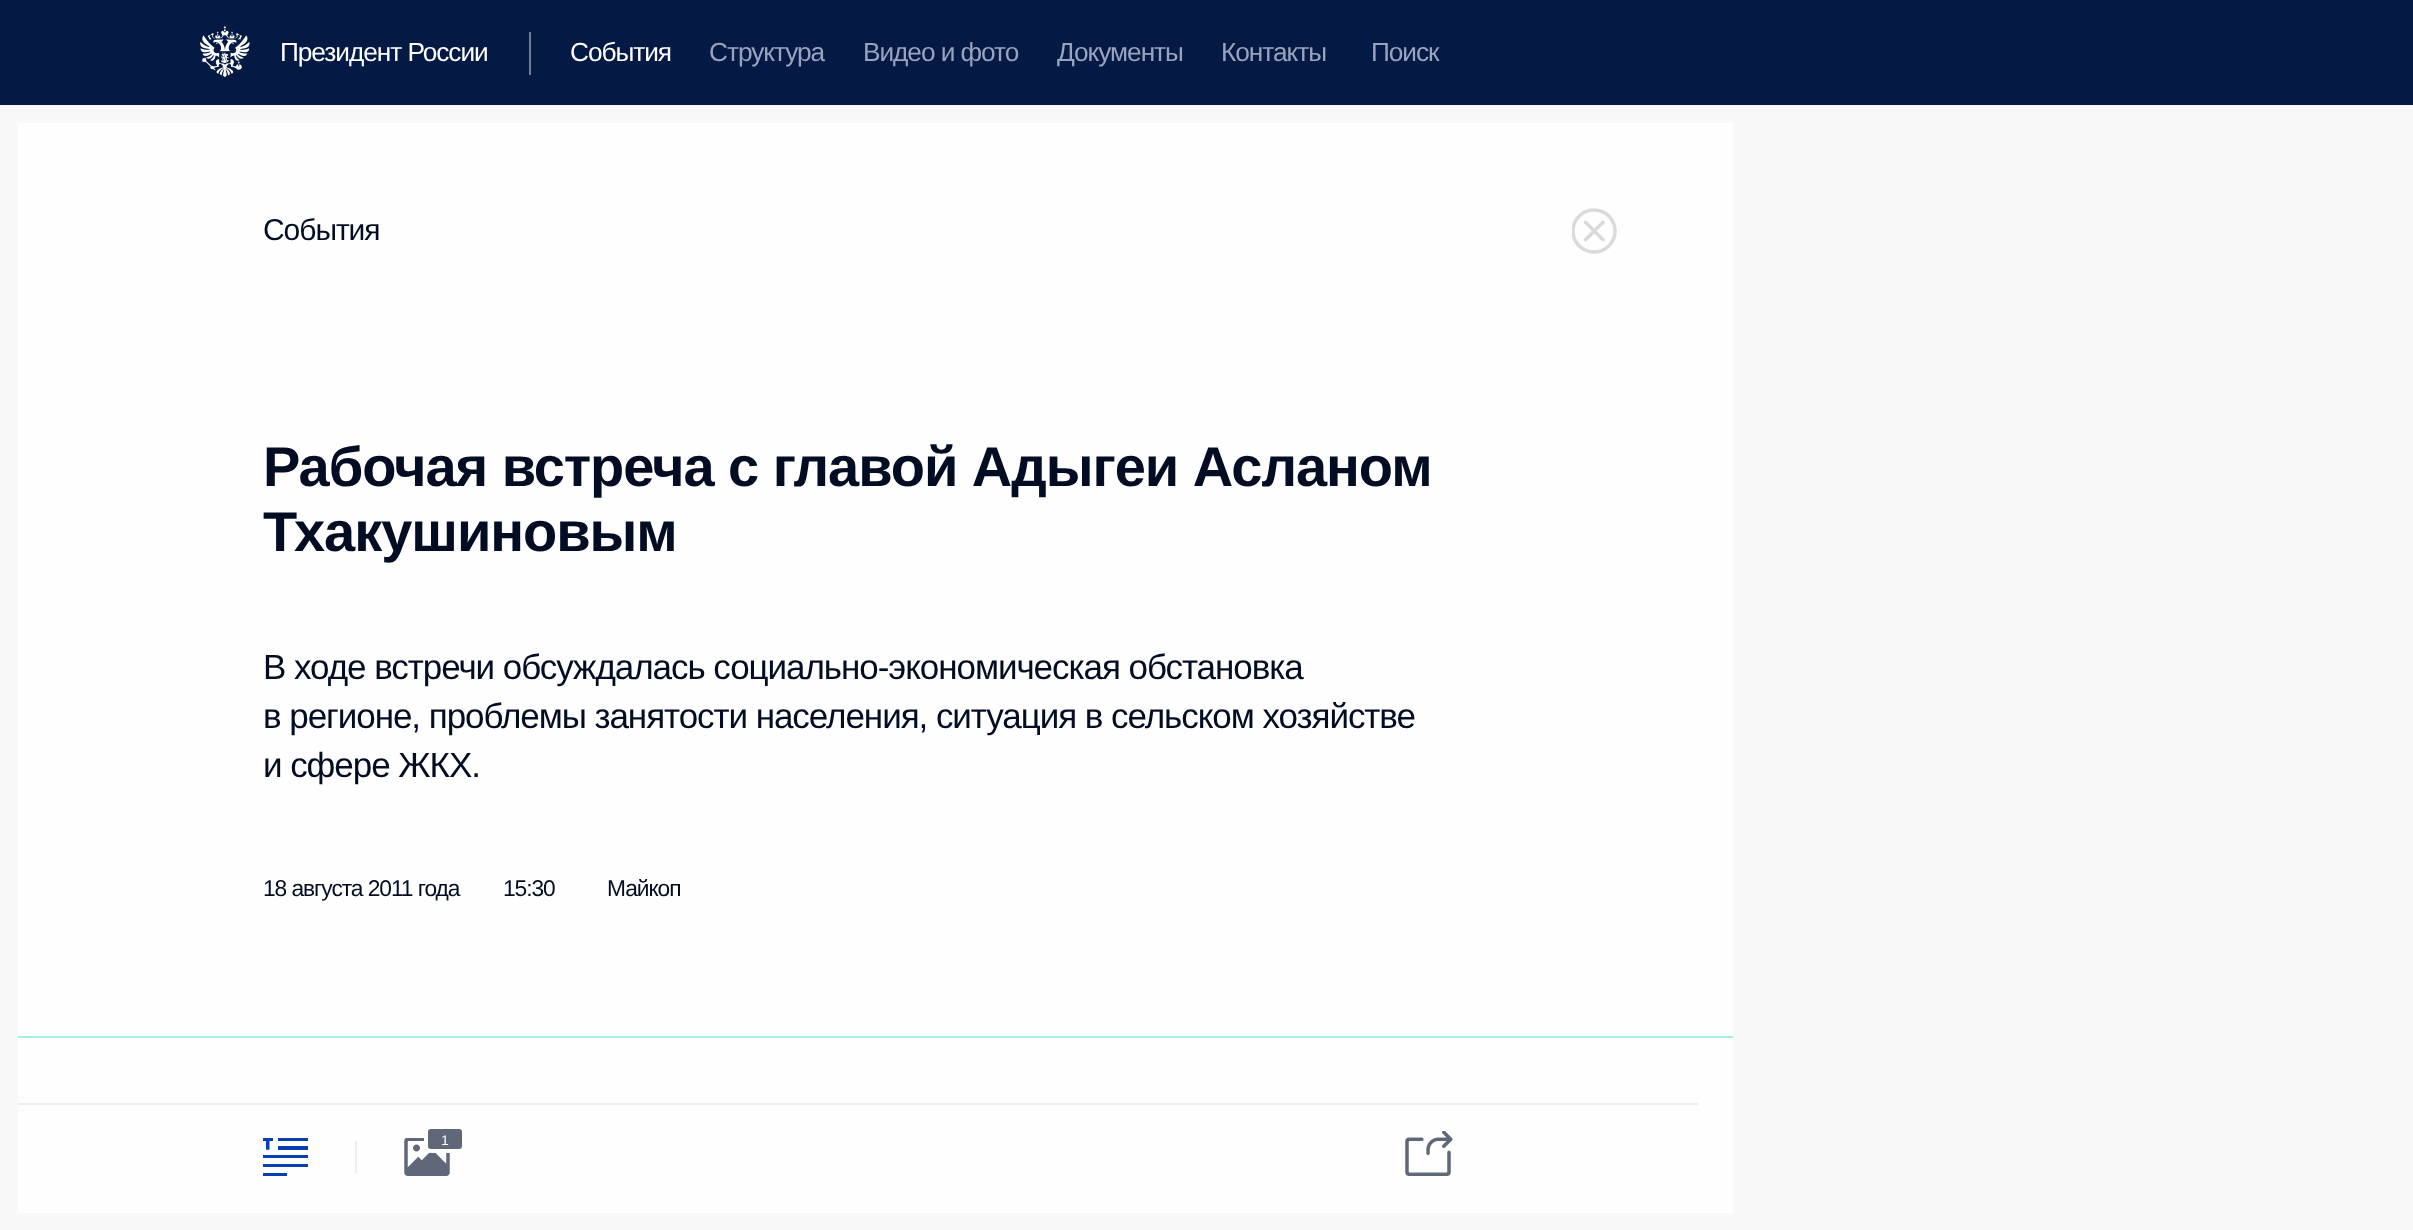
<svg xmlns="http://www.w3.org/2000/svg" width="2413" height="1230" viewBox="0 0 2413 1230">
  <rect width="100%" height="100%" fill="#f8f8f8"/>
  <rect x="0" y="0" width="2413" height="105" fill="#051945"/>
  <image x="200" y="26" width="50" height="51" href="img1.png"/>
  <text x="280" y="61" font-family="Liberation Sans" font-size="26.25" letter-spacing="-1.05" fill="#fefefe">Президент России</text>
  <rect x="529" y="32" width="2" height="43" fill="#707e9c"/>
  <text x="570" y="61" font-family="Liberation Sans" font-size="26.25" letter-spacing="-1.05" fill="#fefefe">События</text>
  <text x="709" y="61" font-family="Liberation Sans" font-size="26.25" letter-spacing="-1.05" fill="#98a4be">Структура</text>
  <text x="863" y="61" font-family="Liberation Sans" font-size="26.25" letter-spacing="-1.05" fill="#98a4be">Видео и фото</text>
  <text x="1057" y="61" font-family="Liberation Sans" font-size="26.25" letter-spacing="-1.05" fill="#98a4be">Документы</text>
  <text x="1221" y="61" font-family="Liberation Sans" font-size="26.25" letter-spacing="-1.05" fill="#98a4be">Контакты</text>
  <text x="1371" y="61" font-family="Liberation Sans" font-size="26.25" letter-spacing="-1.05" fill="#98a4be">Поиск</text>
  <rect x="18" y="123" width="1715" height="1090" fill="#fefefe"/>
  <rect x="18" y="1036" width="1715" height="2" fill="#a8f0e0"/>
  <text x="263" y="240" font-family="Liberation Sans" font-size="30" letter-spacing="-1.05" fill="#020c22">События</text>
  <text x="263" y="486" font-family="Liberation Sans" font-size="56" font-weight="bold" letter-spacing="-1.05" fill="#020c22">Рабочая встреча с главой Адыгеи Асланом</text>
  <text x="263" y="551" font-family="Liberation Sans" font-size="56" font-weight="bold" letter-spacing="-1.05" fill="#020c22">Тхакушиновым</text>
  <text x="263" y="679" font-family="Liberation Sans" font-size="35" letter-spacing="-1.05" fill="#020c22">В ходе встречи обсуждалась социально-экономическая обстановка</text>
  <text x="263" y="728" font-family="Liberation Sans" font-size="35" letter-spacing="-1.05" fill="#020c22">в регионе, проблемы занятости населения, ситуация в сельском хозяйстве</text>
  <text x="263" y="777" font-family="Liberation Sans" font-size="35" letter-spacing="-1.05" fill="#020c22">и сфере ЖКХ.</text>
  <text x="263" y="896" font-family="Liberation Sans" font-size="22.75" letter-spacing="-1.05" fill="#020c22">18 августа 2011 года</text>
  <text x="503" y="896" font-family="Liberation Sans" font-size="22.75" letter-spacing="-1.05" fill="#020c22">15:30</text>
  <text x="607" y="896" font-family="Liberation Sans" font-size="22.75" letter-spacing="-1.05" fill="#020c22">Майкоп</text>
  <image x="1572" y="208" width="45" height="46" href="img2.png"/>
  <rect x="18" y="1103" width="1680" height="2" fill="#eeeeee"/>
  <image x="263" y="1138" width="45" height="38" href="img3.png"/>
  <rect x="355" y="1141" width="2" height="32" fill="#eeeeee"/>
  <image x="404" y="1138" width="46" height="38" href="img4.png"/>
  <rect x="426" y="1127" width="38" height="24" rx="5" fill="#606778" stroke="#fefefe" stroke-width="4"/>
  <text x="441" y="1145" font-family="Liberation Sans" font-size="14" letter-spacing="-1.05" fill="#fefefe">1</text>
  <image x="1405" y="1131" width="48" height="45" href="img5.png"/>
</svg>
